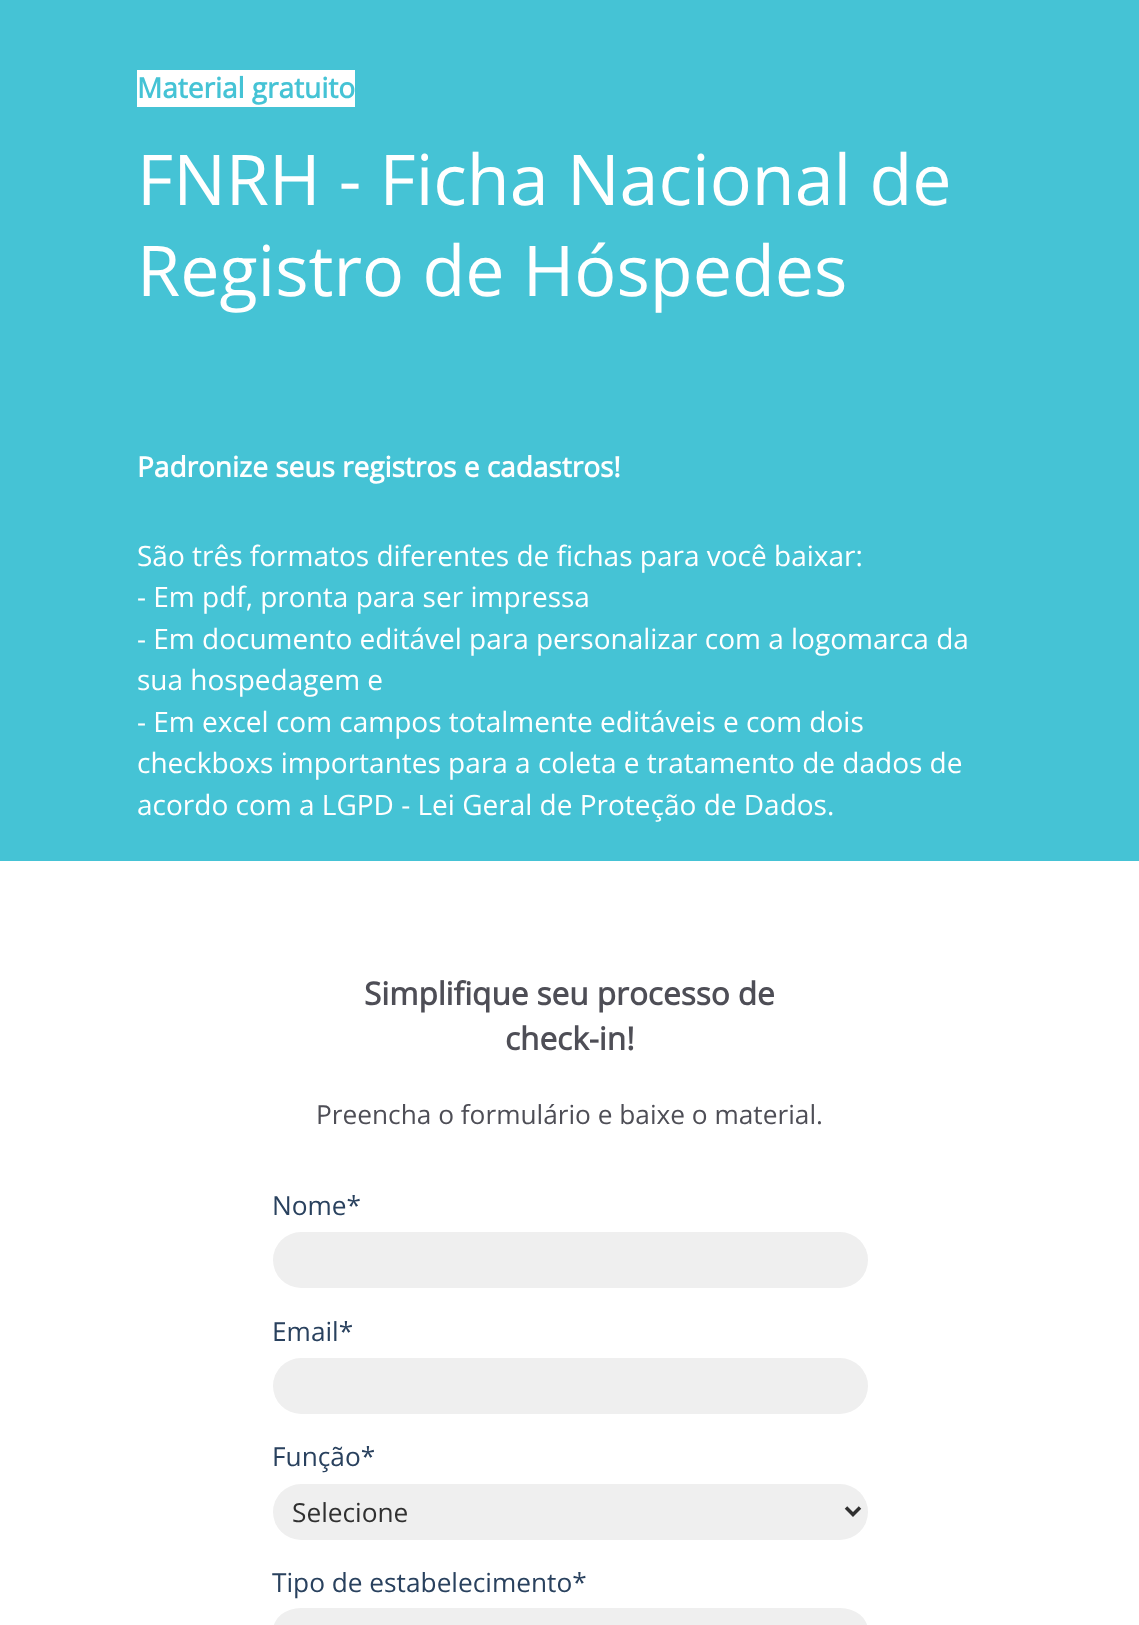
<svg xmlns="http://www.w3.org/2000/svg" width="1139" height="1625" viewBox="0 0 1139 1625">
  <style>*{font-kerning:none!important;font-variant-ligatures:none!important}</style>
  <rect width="100%" height="100%" fill="#45c3d5"/>
  <rect x="137" y="70" width="218" height="37" fill="#ffffff"/>
  <text x="137" y="98" font-family="Open Sans" font-size="28" font-weight="bold" fill="#45c3d5">Material gratuito</text>
  <text x="137" y="205" font-family="Open Sans" font-size="70" fill="#ffffff">FNRH - Ficha Nacional de</text>
  <text x="137" y="296" font-family="Open Sans" font-size="70" fill="#ffffff">Registro de Hóspedes</text>
  <text x="137" y="477" font-family="Open Sans" font-size="28" font-weight="bold" fill="#ffffff">Padronize seus registros e cadastros!</text>
  <text x="137" y="566" font-family="Open Sans" font-size="28" fill="#ffffff">São três formatos diferentes de fichas para você baixar:</text>
  <text x="137" y="607" font-family="Open Sans" font-size="28" fill="#ffffff">- Em pdf, pronta para ser impressa</text>
  <text x="137" y="649" font-family="Open Sans" font-size="28" fill="#ffffff">- Em documento editável para personalizar com a logomarca da</text>
  <text x="137" y="690" font-family="Open Sans" font-size="28" fill="#ffffff">sua hospedagem e</text>
  <text x="137" y="732" font-family="Open Sans" font-size="28" fill="#ffffff">- Em excel com campos totalmente editáveis e com dois</text>
  <text x="137" y="773" font-family="Open Sans" font-size="28" fill="#ffffff">checkboxs importantes para a coleta e tratamento de dados de</text>
  <text x="137" y="815" font-family="Open Sans" font-size="28" fill="#ffffff">acordo com a LGPD - Lei Geral de Proteção de Dados.</text>
  <rect x="0" y="861" width="1139" height="764" fill="#ffffff"/>
  <text x="364" y="1005" font-family="Open Sans" font-size="31.5" font-weight="bold" fill="#4e4e56">Simplifique seu processo de</text>
  <text x="505" y="1050" font-family="Open Sans" font-size="31.5" font-weight="bold" fill="#4e4e56">check-in!</text>
  <text x="316" y="1124" font-family="Open Sans" font-size="26.25" fill="#4e4e56">Preencha o formulário e baixe o material.</text>
  <text x="272" y="1215" font-family="Open Sans" font-size="26.25" fill="#29415e">Nome*</text>
  <rect x="273" y="1232" width="595" height="56" rx="28" fill="#efefef"/>
  <text x="272" y="1341" font-family="Open Sans" font-size="26.25" fill="#29415e">Email*</text>
  <rect x="273" y="1358" width="595" height="56" rx="28" fill="#efefef"/>
  <text x="272" y="1466" font-family="Open Sans" font-size="26.25" fill="#29415e">Função*</text>
  <rect x="273" y="1484" width="595" height="56" rx="28" fill="#efefef"/>
  <path d="M846 1507.5L853 1514.5L860 1507.5" fill="none" stroke="#303030" stroke-width="3.5"/>
  <text x="292" y="1522" font-family="Open Sans" font-size="26.25" fill="#303030">Selecione</text>
  <text x="272" y="1592" font-family="Open Sans" font-size="26.25" fill="#29415e">Tipo de estabelecimento*</text>
  <rect x="273" y="1608" width="595" height="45" rx="28" fill="#efefef"/>
</svg>
